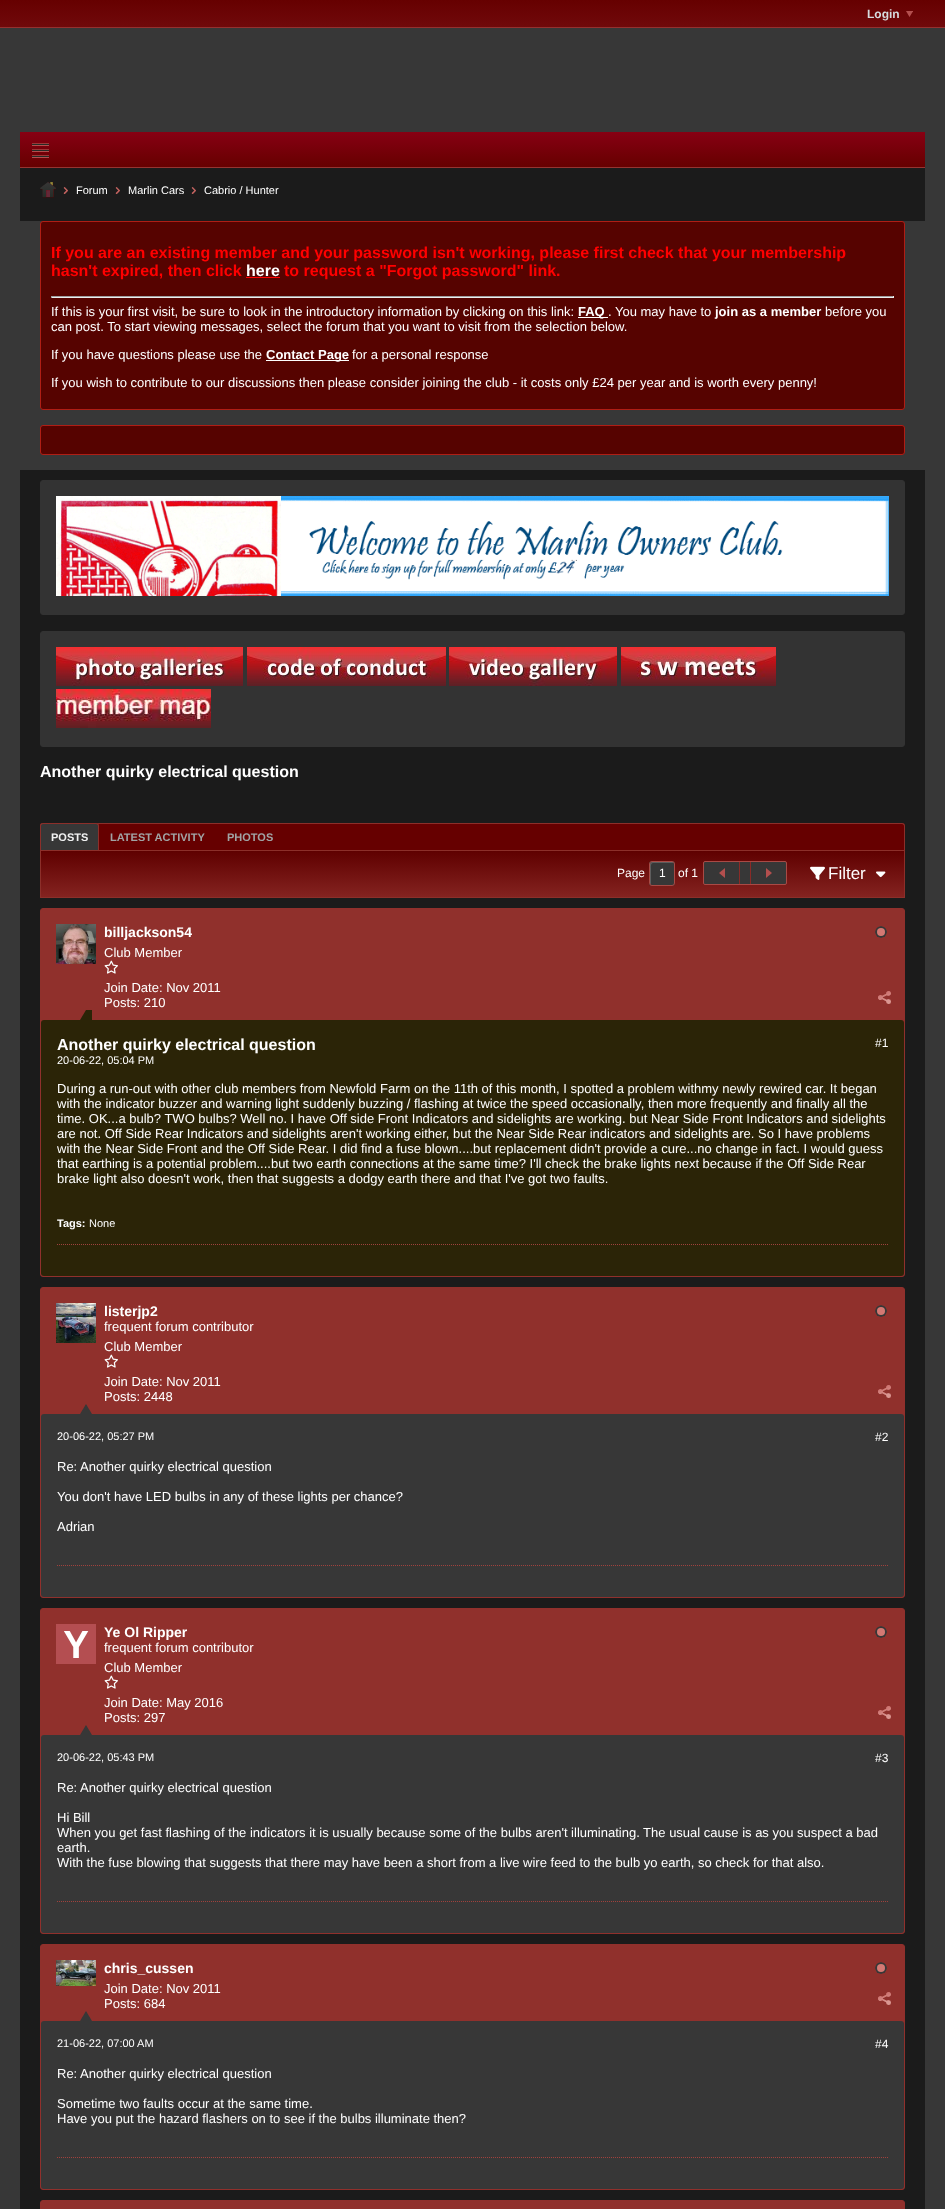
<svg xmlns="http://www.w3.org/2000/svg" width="945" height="2209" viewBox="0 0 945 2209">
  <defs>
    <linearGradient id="g1" gradientUnits="userSpaceOnUse" x1="473" y1="0" x2="473" y2="27"><stop offset="0" stop-color="#660000"/><stop offset="1" stop-color="#70090b"/></linearGradient>
    <linearGradient id="g2" gradientUnits="userSpaceOnUse" x1="473" y1="132" x2="473" y2="167"><stop offset="0" stop-color="#870013"/><stop offset="1" stop-color="#660000"/></linearGradient>
    <linearGradient id="g3" gradientUnits="userSpaceOnUse" x1="473" y1="851" x2="473" y2="897"><stop offset="0" stop-color="#5f0000"/><stop offset="1" stop-color="#842320"/></linearGradient>
  </defs>
  <rect width="100%" height="100%" fill="#373737"/>
  <rect x="0" y="0" width="945" height="27" fill="url(#g1)"/>
  <rect x="0" y="27" width="945" height="1" fill="#953130"/>
  <text x="867" y="18" font-family="Liberation Sans" font-size="12" font-weight="bold" fill="#d6dbde">Login</text>
  <image x="906" y="11" width="7" height="6" href="img1.png"/>
  <rect x="20" y="132" width="905" height="35" fill="url(#g2)"/>
  <rect x="20" y="167" width="905" height="1" fill="#963431"/>
  <image x="32" y="143" width="17" height="15" href="img2.png"/>
  <rect x="20" y="168" width="905" height="53" fill="#1b1b1b"/>
  <image x="40" y="182" width="16" height="16" href="img3.png"/>
  <image x="63" y="187" width="5" height="7" href="img4.png"/>
  <text x="76" y="194" font-family="Liberation Sans" font-size="11" fill="#ffffff">Forum</text>
  <image x="115" y="187" width="5" height="7" href="img4.png"/>
  <text x="128" y="194" font-family="Liberation Sans" font-size="11" fill="#ffffff">Marlin Cars</text>
  <image x="191" y="187" width="5" height="7" href="img4.png"/>
  <text x="204" y="194" font-family="Liberation Sans" font-size="11" fill="#ffffff">Cabrio / Hunter</text>
  <rect x="40.5" y="221.5" width="864" height="188" rx="2.5" fill="#560300" stroke="#af1e15"/>
  <text x="51" y="258" font-family="Liberation Sans" font-size="16" font-weight="bold" fill="#ff0000">If you are an existing member and your password isn't working, please first check that your membership</text>
  <text x="51" y="276" font-family="Liberation Sans" font-size="16" font-weight="bold" fill="#ff0000">hasn't expired, then click</text>
  <text x="246" y="276" font-family="Liberation Sans" font-size="16" font-weight="bold" fill="#ffffff">here</text>
  <rect x="246" y="277" width="34" height="1" fill="#ff0000"/>
  <text x="284" y="276" font-family="Liberation Sans" font-size="16" font-weight="bold" fill="#ff0000">to request a "Forgot password" link.</text>
  <rect x="51" y="296" width="843" height="1" fill="#9f9f9f"/>
  <rect x="893" y="296" width="1" height="2" fill="#eeeeee"/>
  <rect x="51" y="297" width="843" height="1" fill="#eeeeee"/>
  <rect x="51" y="296" width="1" height="2" fill="#9f9f9f"/>
  <text x="51" y="316" font-family="Liberation Sans" font-size="13" fill="#ffffff">If this is your first visit, be sure to look in the introductory information by clicking on this link:</text>
  <rect x="578" y="317" width="30" height="1" fill="#ffffff"/>
  <text x="578" y="316" font-family="Liberation Sans" font-size="13" font-weight="bold" fill="#ffffff">FAQ</text>
  <text x="608" y="316" font-family="Liberation Sans" font-size="13" fill="#ffffff">. You may have to</text>
  <text x="715" y="316" font-family="Liberation Sans" font-size="13" font-weight="bold" fill="#ffffff">join as a member</text>
  <text x="825" y="316" font-family="Liberation Sans" font-size="13" fill="#ffffff">before you</text>
  <text x="51" y="331" font-family="Liberation Sans" font-size="13" fill="#ffffff">can post. To start viewing messages, select the forum that you want to visit from the selection below.</text>
  <text x="51" y="359" font-family="Liberation Sans" font-size="13" fill="#ffffff">If you have questions please use the</text>
  <rect x="266" y="360" width="83" height="1" fill="#ffffff"/>
  <text x="266" y="359" font-family="Liberation Sans" font-size="13" font-weight="bold" fill="#ffffff">Contact Page</text>
  <text x="352" y="359" font-family="Liberation Sans" font-size="13" fill="#ffffff">for a personal response</text>
  <text x="51" y="387" font-family="Liberation Sans" font-size="13" fill="#ffffff">If you wish to contribute to our discussions then please consider joining the club - it costs only £24 per year and is worth every penny!</text>
  <rect x="40.5" y="425.5" width="864" height="29" rx="2.5" fill="#560300" stroke="#af1e15"/>
  <rect x="20" y="470" width="905" height="1739" fill="#1b1b1b"/>
  <rect x="40.5" y="480.5" width="864" height="134" rx="2.5" fill="#333333" stroke="#333333"/>
  <image x="56" y="496" width="833" height="100" href="img5.png"/>
  <rect x="40.5" y="631.5" width="864" height="115" rx="2.5" fill="#333333" stroke="#333333"/>
  <image x="56" y="647" width="187" height="39" href="img6.png"/>
  <image x="247" y="647" width="199" height="39" href="img7.png"/>
  <image x="449" y="647" width="168" height="39" href="img8.png"/>
  <image x="621" y="647" width="155" height="39" href="img9.png"/>
  <image x="56" y="689" width="155" height="39" href="img10.png"/>
  <text x="40" y="777" font-family="Liberation Sans" font-size="16" font-weight="bold" fill="#ffffff">Another quirky electrical question</text>
  <path d="M43 823H902C903.5 823 905 824.5 905 826V850H40V826C40 824.5 41.5 823 43 823Z" fill="#660000"/>
  <path d="M43 823H902C904 823 905 824 905 826V850H40V826C40 824 41 823 43 823ZM43 824H902C903 824 904 825 904 826V850H41V826C41 825 42 824 43 824Z" fill="#8c2f2a" fill-rule="evenodd"/>
  <path d="M44 824H281C282.5 824 284 825.5 284 827V850H41V827C41 825.5 42.5 824 44 824Z" fill="#660000"/>
  <path d="M43 823H96C97.5 823 99 824.5 99 826V850H40V826C40 824.5 41.5 823 43 823Z" fill="#373737"/>
  <path d="M43 823H96C98 823 99 824 99 826V850H40V826C40 824 41 823 43 823ZM43 824H96C97 824 98 825 98 826V850H41V826C41 825 42 824 43 824Z" fill="#8c2f2a" fill-rule="evenodd"/>
  <text x="51" y="841" font-family="Liberation Sans" font-size="11" font-weight="bold" fill="#f0f1f1">POSTS</text>
  <text x="110" y="841" font-family="Liberation Sans" font-size="11" font-weight="bold" fill="#a1a4a5">LATEST ACTIVITY</text>
  <text x="227" y="841" font-family="Liberation Sans" font-size="11" font-weight="bold" fill="#a1a4a5">PHOTOS</text>
  <rect x="41" y="851" width="863" height="46" fill="url(#g3)"/>
  <rect x="40.5" y="850.5" width="864" height="47" fill="none" stroke="#8c2f2a"/>
  <text x="617" y="877" font-family="Liberation Sans" font-size="12" fill="#ffffff">Page</text>
  <rect x="649" y="861" width="26" height="25" rx="3" fill="#373737"/>
  <path d="M653 863H673H674C673.5 862.5 673 862 672 862H652C651 862 650 863 650 864V883C650 884 650.5 884.5 651 885V868C651 867 650.5 863 653 863Z" fill="#5d5d5d"/>
  <rect x="649.5" y="861.5" width="25" height="24" rx="2.5" fill="none" stroke="#a84a45"/>
  <text x="659" y="877" font-family="Liberation Sans" font-size="12" fill="#ffffff">1</text>
  <text x="678" y="877" font-family="Liberation Sans" font-size="12" fill="#ffffff">of 1</text>
  <rect x="703.5" y="861.5" width="83" height="23" rx="1.5" fill="#373737" stroke="#a84a45"/>
  <rect x="739" y="862" width="1" height="22" fill="#8a2b27"/>
  <image x="719" y="868" width="6" height="10" href="img11.png"/>
  <rect x="750" y="862" width="1" height="22" fill="#8a2b27"/>
  <image x="766" y="868" width="6" height="10" href="img12.png"/>
  <image x="810" y="866" width="15" height="14" href="img13.png"/>
  <text x="828" y="879" font-family="Liberation Sans" font-size="17" fill="#ffffff">Filter</text>
  <image x="876" y="871" width="10" height="7" href="img14.png"/>
  <rect x="40.5" y="908.5" width="864" height="368" rx="2.5" fill="#90302c" stroke="#90302c"/>
  <image x="56" y="924" width="40" height="40" href="img15.png"/>
  <text x="104" y="937" font-family="Liberation Sans" font-size="14" font-weight="bold" fill="#ffffff">billjackson54</text>
  <text x="104" y="957" font-family="Liberation Sans" font-size="13" fill="#ffffff">Club Member</text>
  <image x="104" y="960" width="14" height="14" href="img16.png"/>
  <text x="104" y="992" font-family="Liberation Sans" font-size="13" fill="#ffffff">Join Date: Nov 2011</text>
  <text x="104" y="1007" font-family="Liberation Sans" font-size="13" fill="#ffffff">Posts: 210</text>
  <image x="875" y="926" width="12" height="12" href="img17.png"/>
  <image x="878" y="991" width="13" height="13" href="img18.png"/>
  <rect x="41" y="1020" width="863" height="256" rx="3" fill="#2b2407"/>
  <rect x="86" y="1010" width="6" height="10" fill="#2b2407"/>
  <path d="M92 1020H80L86 1010Z" fill="#2b2407"/>
  <text x="57" y="1050" font-family="Liberation Sans" font-size="16" font-weight="bold" fill="#ffffff">Another quirky electrical question</text>
  <text x="57" y="1064" font-family="Liberation Sans" font-size="11" fill="#ffffff">20-06-22, 05:04 PM</text>
  <text x="875" y="1047" font-family="Liberation Sans" font-size="12" fill="#ffffff">#1</text>
  <text x="57" y="1093" font-family="Liberation Sans" font-size="13" fill="#ffffff">During a run-out with other club members from Newfold Farm on the 11th of this month, I spotted a problem withmy newly rewired car. It began</text>
  <text x="57" y="1108" font-family="Liberation Sans" font-size="13" fill="#ffffff">with the indicator buzzer and warning light suddenly buzzing / flashing at twice the speed occasionally, then more frequently and finally all the</text>
  <text x="57" y="1123" font-family="Liberation Sans" font-size="13" fill="#ffffff">time. OK...a bulb? TWO bulbs? Well no. I have Off side Front Indicators and sidelights are working. but Near Side Front Indicators and sidelights</text>
  <text x="57" y="1138" font-family="Liberation Sans" font-size="13" fill="#ffffff">are not. Off Side Rear Indicators and sidelights aren't working either, but the Near Side Rear indicators and sidelights are. So I have problems</text>
  <text x="57" y="1153" font-family="Liberation Sans" font-size="13" fill="#ffffff">with the Near Side Front and the Off Side Rear. I did find a fuse blown....but replacement didn't provide a cure...no change in fact. I would guess</text>
  <text x="57" y="1168" font-family="Liberation Sans" font-size="13" fill="#ffffff">that earthing is a potential problem....but two earth connections at the same time? I'll check the brake lights next because if the Off Side Rear</text>
  <text x="57" y="1183" font-family="Liberation Sans" font-size="13" fill="#ffffff">brake light also doesn't work, then that suggests a dodgy earth there and that I've got two faults.</text>
  <text x="57" y="1227" font-family="Liberation Sans" font-size="11" font-weight="bold" fill="#ffffff">Tags:</text>
  <text x="89" y="1227" font-family="Liberation Sans" font-size="11" fill="#ffffff">None</text>
  <path d="M57 1244.5H888" fill="none" stroke="#a0413c" stroke-dasharray="1 1"/>
  <rect x="40.5" y="1287.5" width="864" height="310" rx="2.5" fill="#90302c" stroke="#90302c"/>
  <image x="56" y="1303" width="40" height="40" href="img19.png"/>
  <text x="104" y="1316" font-family="Liberation Sans" font-size="14" font-weight="bold" fill="#ffffff">listerjp2</text>
  <text x="104" y="1331" font-family="Liberation Sans" font-size="13" fill="#ffffff">frequent forum contributor</text>
  <text x="104" y="1351" font-family="Liberation Sans" font-size="13" fill="#ffffff">Club Member</text>
  <image x="104" y="1354" width="14" height="14" href="img16.png"/>
  <text x="104" y="1386" font-family="Liberation Sans" font-size="13" fill="#ffffff">Join Date: Nov 2011</text>
  <text x="104" y="1401" font-family="Liberation Sans" font-size="13" fill="#ffffff">Posts: 2448</text>
  <image x="875" y="1305" width="12" height="12" href="img17.png"/>
  <image x="878" y="1385" width="13" height="13" href="img18.png"/>
  <rect x="41" y="1414" width="863" height="183" rx="3" fill="#373737"/>
  <path d="M92 1414H80L86 1404Z" fill="#373737"/>
  <text x="57" y="1440" font-family="Liberation Sans" font-size="11" fill="#ffffff">20-06-22, 05:27 PM</text>
  <text x="875" y="1441" font-family="Liberation Sans" font-size="12" fill="#ffffff">#2</text>
  <text x="57" y="1471" font-family="Liberation Sans" font-size="13" fill="#ffffff">Re: Another quirky electrical question</text>
  <text x="57" y="1501" font-family="Liberation Sans" font-size="13" fill="#ffffff">You don't have LED bulbs in any of these lights per chance?</text>
  <text x="57" y="1531" font-family="Liberation Sans" font-size="13" fill="#ffffff">Adrian</text>
  <path d="M57 1565.5H888" fill="none" stroke="#a0413c" stroke-dasharray="1 1"/>
  <rect x="40.5" y="1608.5" width="864" height="325" rx="2.5" fill="#90302c" stroke="#90302c"/>
  <image x="56" y="1624" width="40" height="40" href="img20.png"/>
  <text x="104" y="1637" font-family="Liberation Sans" font-size="14" font-weight="bold" fill="#ffffff">Ye Ol Ripper</text>
  <text x="104" y="1652" font-family="Liberation Sans" font-size="13" fill="#ffffff">frequent forum contributor</text>
  <text x="104" y="1672" font-family="Liberation Sans" font-size="13" fill="#ffffff">Club Member</text>
  <image x="104" y="1675" width="14" height="14" href="img16.png"/>
  <text x="104" y="1707" font-family="Liberation Sans" font-size="13" fill="#ffffff">Join Date: May 2016</text>
  <text x="104" y="1722" font-family="Liberation Sans" font-size="13" fill="#ffffff">Posts: 297</text>
  <image x="875" y="1626" width="12" height="12" href="img17.png"/>
  <image x="878" y="1706" width="13" height="13" href="img18.png"/>
  <rect x="41" y="1735" width="863" height="198" rx="3" fill="#373737"/>
  <path d="M92 1735H80L86 1725Z" fill="#373737"/>
  <text x="57" y="1761" font-family="Liberation Sans" font-size="11" fill="#ffffff">20-06-22, 05:43 PM</text>
  <text x="875" y="1762" font-family="Liberation Sans" font-size="12" fill="#ffffff">#3</text>
  <text x="57" y="1792" font-family="Liberation Sans" font-size="13" fill="#ffffff">Re: Another quirky electrical question</text>
  <text x="57" y="1822" font-family="Liberation Sans" font-size="13" fill="#ffffff">Hi Bill</text>
  <text x="57" y="1837" font-family="Liberation Sans" font-size="13" fill="#ffffff">When you get fast flashing of the indicators it is usually because some of the bulbs aren't illuminating. The usual cause is as you suspect a bad</text>
  <text x="57" y="1852" font-family="Liberation Sans" font-size="13" fill="#ffffff">earth.</text>
  <text x="57" y="1867" font-family="Liberation Sans" font-size="13" fill="#ffffff">With the fuse blowing that suggests that there may have been a short from a live wire feed to the bulb yo earth, so check for that also.</text>
  <path d="M57 1901.5H888" fill="none" stroke="#a0413c" stroke-dasharray="1 1"/>
  <rect x="40.5" y="1944.5" width="864" height="245" rx="2.5" fill="#90302c" stroke="#90302c"/>
  <image x="56" y="1960" width="40" height="26" href="img21.png"/>
  <text x="104" y="1973" font-family="Liberation Sans" font-size="14" font-weight="bold" fill="#ffffff">chris_cussen</text>
  <text x="104" y="1993" font-family="Liberation Sans" font-size="13" fill="#ffffff">Join Date: Nov 2011</text>
  <text x="104" y="2008" font-family="Liberation Sans" font-size="13" fill="#ffffff">Posts: 684</text>
  <image x="875" y="1962" width="12" height="12" href="img17.png"/>
  <image x="878" y="1992" width="13" height="13" href="img18.png"/>
  <rect x="41" y="2021" width="863" height="168" rx="3" fill="#373737"/>
  <path d="M92 2021H80L86 2011Z" fill="#373737"/>
  <text x="57" y="2047" font-family="Liberation Sans" font-size="11" fill="#ffffff">21-06-22, 07:00 AM</text>
  <text x="875" y="2048" font-family="Liberation Sans" font-size="12" fill="#ffffff">#4</text>
  <text x="57" y="2078" font-family="Liberation Sans" font-size="13" fill="#ffffff">Re: Another quirky electrical question</text>
  <text x="57" y="2108" font-family="Liberation Sans" font-size="13" fill="#ffffff">Sometime two faults occur at the same time.</text>
  <text x="57" y="2123" font-family="Liberation Sans" font-size="13" fill="#ffffff">Have you put the hazard flashers on to see if the bulbs illuminate then?</text>
  <path d="M57 2157.5H888" fill="none" stroke="#a0413c" stroke-dasharray="1 1"/>
  <rect x="40.5" y="2200.5" width="864" height="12" rx="2.5" fill="#90302c" stroke="#90302c"/>
</svg>
